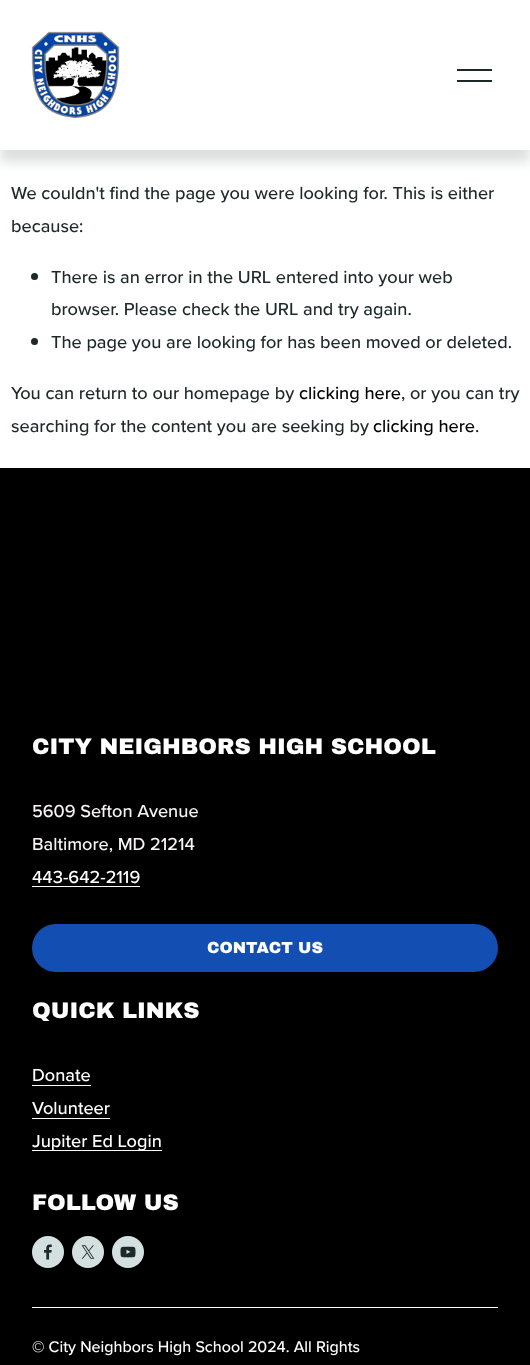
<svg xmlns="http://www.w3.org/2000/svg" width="530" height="1365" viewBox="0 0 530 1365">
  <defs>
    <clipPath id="clip1"><rect x="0" y="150" width="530" height="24"/></clipPath>
    <filter id="blur1" x="-50%" y="-200%" width="200%" height="500%"><feGaussianBlur stdDeviation="6"/></filter>
  </defs>
  <rect width="100%" height="100%" fill="#ffffff"/>
  <g clip-path="url(#clip1)">
    <rect x="0" y="12" width="530" height="150" fill="#dddfdf" filter="url(#blur1)"/>
  </g>
  <image x="31" y="31" width="89" height="87" href="img1.png"/>
  <rect x="457" y="69" width="35" height="2" fill="#1d2828"/>
  <rect x="457" y="80" width="35" height="2" fill="#1d2828"/>
  <text x="11" y="199" font-family="Proxima Nova" font-size="18.15" font-weight="500" fill="#1d2828">We couldn't find the page you were looking for. This is either</text>
  <text x="11" y="232" font-family="Proxima Nova" font-size="18.15" font-weight="500" fill="#1d2828">because:</text>
  <circle cx="34.5" cy="276.5" r="3.5" fill="#1d2828"/>
  <text x="51" y="283" font-family="Proxima Nova" font-size="18.15" font-weight="500" fill="#1d2828">There is an error in the URL entered into your web</text>
  <text x="51" y="315" font-family="Proxima Nova" font-size="18.15" font-weight="500" fill="#1d2828">browser. Please check the URL and try again.</text>
  <circle cx="34.5" cy="341.5" r="3.5" fill="#1d2828"/>
  <text x="51" y="348" font-family="Proxima Nova" font-size="18.15" font-weight="500" fill="#1d2828">The page you are looking for has been moved or deleted.</text>
  <text x="11" y="399" font-family="Proxima Nova" font-size="18.15" font-weight="500" fill="#1d2828">You can return to our homepage by</text>
  <text x="299" y="399" font-family="Proxima Nova" font-size="18.15" font-weight="500" fill="#000000">clicking here</text>
  <text x="401" y="399" font-family="Proxima Nova" font-size="18.15" font-weight="500" fill="#1d2828">, or you can try</text>
  <text x="11" y="432" font-family="Proxima Nova" font-size="18.15" font-weight="500" fill="#1d2828">searching for the content you are seeking by</text>
  <text x="373" y="432" font-family="Proxima Nova" font-size="18.15" font-weight="500" fill="#000000">clicking here</text>
  <text x="475" y="432" font-family="Proxima Nova" font-size="18.15" font-weight="500" fill="#1d2828">.</text>
  <rect x="0" y="468" width="530" height="897" fill="#000000"/>
  <text x="32" y="754" font-family="Archivo Black" font-size="22.5" font-weight="900" fill="#ffffff">CITY NEIGHBORS HIGH SCHOOL</text>
  <text x="32" y="817" font-family="Proxima Nova" font-size="18.15" font-weight="500" fill="#faf3f3">5609 Sefton Avenue</text>
  <text x="32" y="850" font-family="Proxima Nova" font-size="18.15" font-weight="500" fill="#faf3f3">Baltimore, MD 21214</text>
  <text x="32" y="883" font-family="Proxima Nova" font-size="18.15" font-weight="500" fill="#ffffff">443-642-2119</text>
  <rect x="32" y="886" width="108" height="1" fill="#ffffff"/>
  <rect x="32" y="924" width="466" height="48" rx="24" fill="#134fb3"/>
  <text x="207" y="953" font-family="Archivo Black" font-size="16" font-weight="900" fill="#ffffff">CONTACT US</text>
  <text x="32" y="1018" font-family="Archivo Black" font-size="22.5" font-weight="900" fill="#ffffff">QUICK LINKS</text>
  <text x="32" y="1081" font-family="Proxima Nova" font-size="18.15" font-weight="500" fill="#ffffff">Donate</text>
  <rect x="32" y="1085" width="59" height="1" fill="#ffffff"/>
  <text x="32" y="1114" font-family="Proxima Nova" font-size="18.15" font-weight="500" fill="#ffffff">Volunteer</text>
  <rect x="32" y="1118" width="78" height="1" fill="#ffffff"/>
  <rect x="32" y="1150" width="130" height="1" fill="#ffffff"/>
  <text x="32" y="1147" font-family="Proxima Nova" font-size="18.15" font-weight="500" fill="#ffffff">Jupiter Ed Login</text>
  <text x="32" y="1210" font-family="Archivo Black" font-size="22.5" font-weight="900" fill="#ffffff">FOLLOW US</text>
  <circle cx="48" cy="1252" r="16" fill="#d4e0e0"/>
  <image x="44" y="1244" width="8" height="16" href="img2.png"/>
  <circle cx="88" cy="1252" r="16" fill="#d4e0e0"/>
  <image x="81" y="1245" width="14" height="14" href="img3.png"/>
  <circle cx="128" cy="1252" r="16" fill="#d4e0e0"/>
  <image x="120" y="1246" width="16" height="12" href="img4.png"/>
  <rect x="32" y="1307" width="466" height="1" fill="#ffffff"/>
  <text x="32" y="1352" font-family="Proxima Nova" font-size="16" font-weight="500" fill="#ffffff">© City Neighbors High School 2024. All Rights</text>
</svg>
